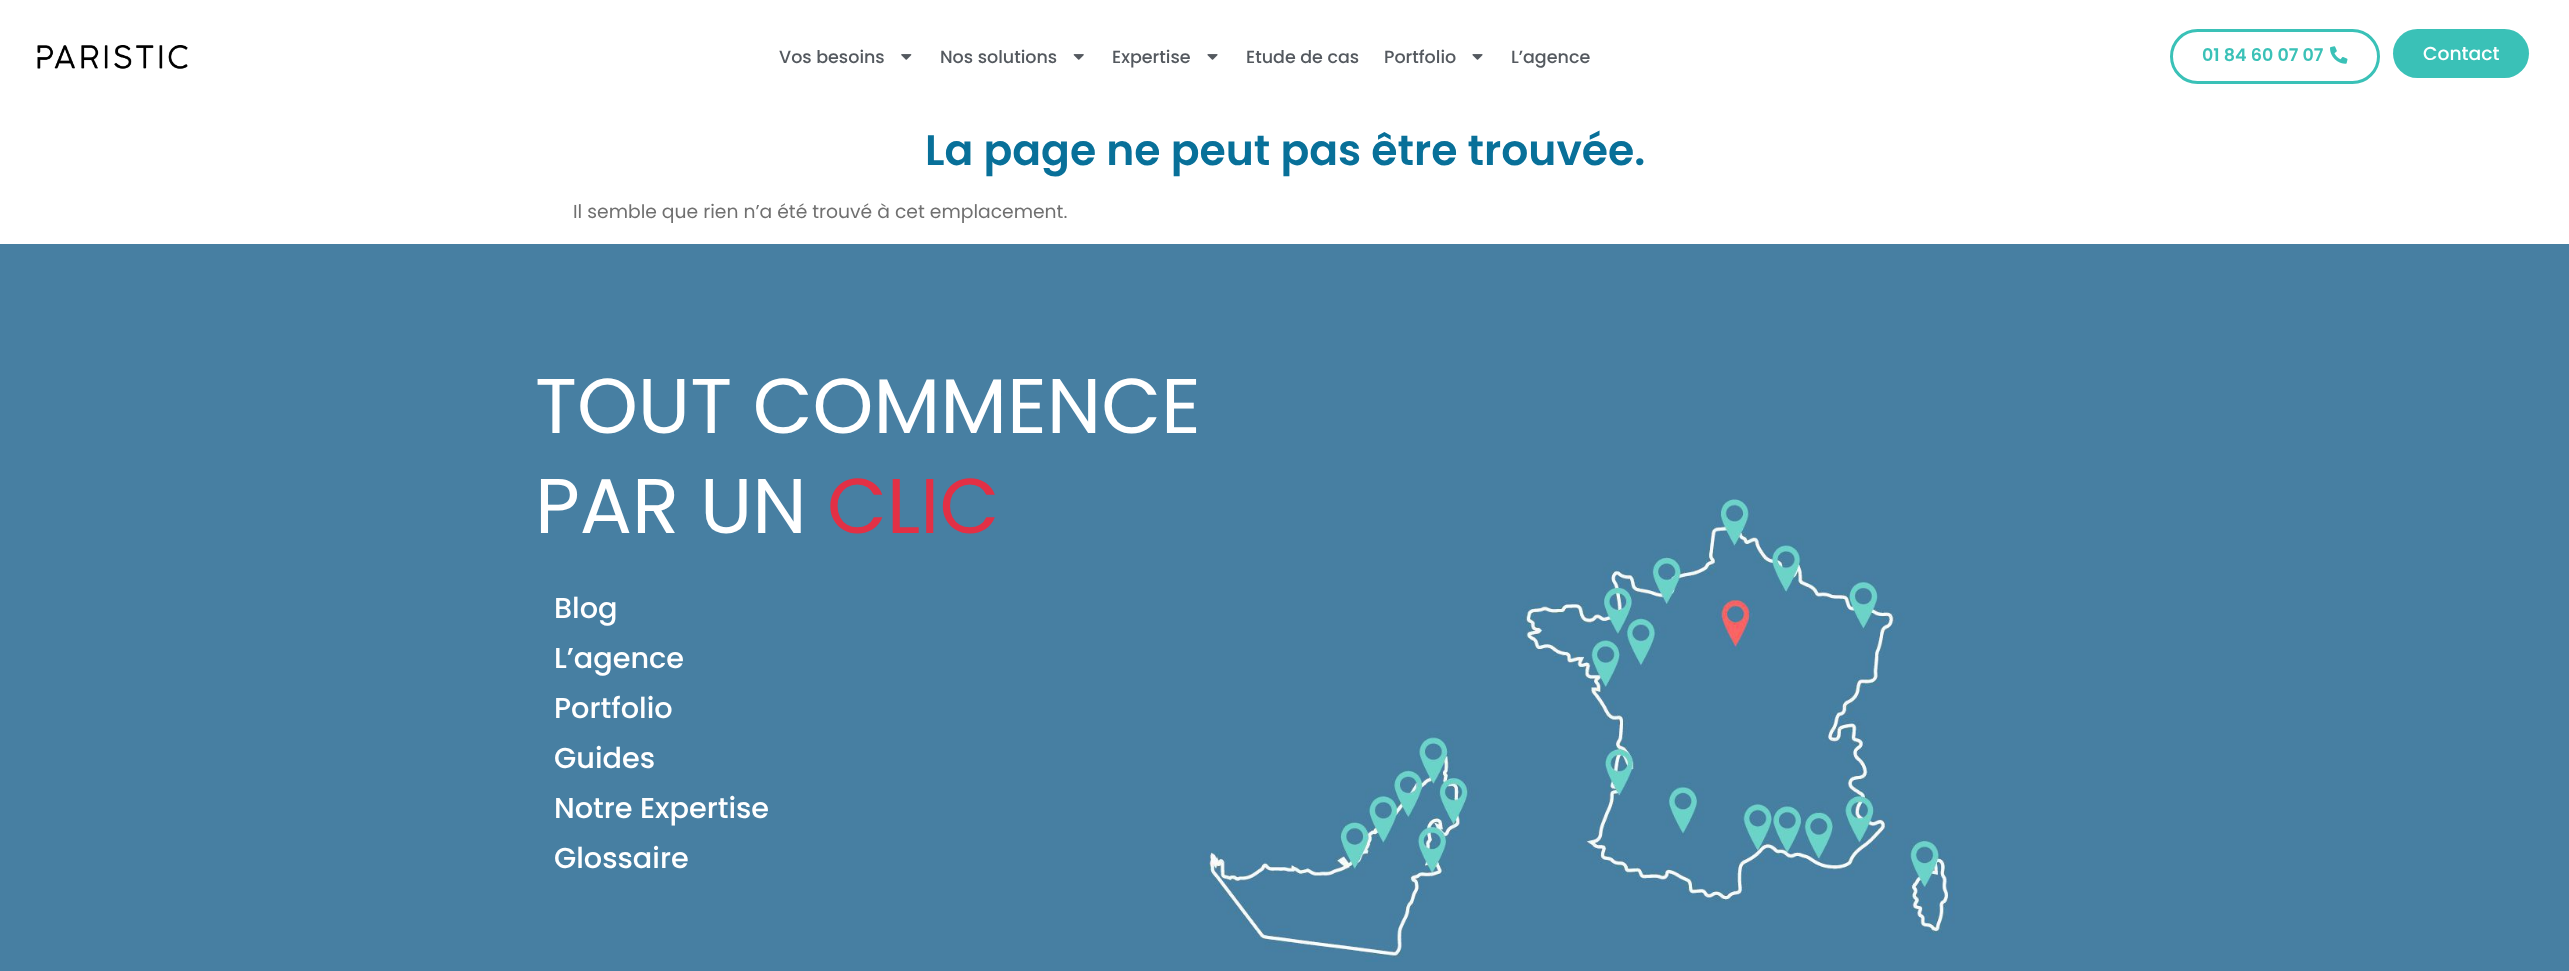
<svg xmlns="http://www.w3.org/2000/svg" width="2569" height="971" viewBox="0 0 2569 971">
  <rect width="100%" height="100%" fill="#ffffff"/>
  <image x="37" y="45" width="151" height="24" href="img1.png"/>
  <text x="779" y="63" font-family="Poppins" font-size="17.5" font-weight="500" fill="#54595f">Vos besoins</text>
  <image x="901" y="54" width="11" height="6" href="img2.png"/>
  <text x="940" y="63" font-family="Poppins" font-size="17.5" font-weight="500" fill="#54595f">Nos solutions</text>
  <image x="1073" y="54" width="11" height="6" href="img3.png"/>
  <text x="1112" y="63" font-family="Poppins" font-size="17.5" font-weight="500" fill="#54595f">Expertise</text>
  <image x="1207" y="54" width="11" height="6" href="img4.png"/>
  <text x="1246" y="63" font-family="Poppins" font-size="17.5" font-weight="500" fill="#54595f">Etude de cas</text>
  <text x="1384" y="63" font-family="Poppins" font-size="17.5" font-weight="500" fill="#54595f">Portfolio</text>
  <image x="1472" y="54" width="11" height="6" href="img4.png"/>
  <text x="1511" y="63" font-family="Poppins" font-size="17.5" font-weight="500" fill="#54595f">L’agence</text>
  <rect x="2171.5" y="30.5" width="207" height="52" rx="26" fill="none" stroke="#3ac1b7" stroke-width="3"/>
  <text x="2202" y="61" font-family="Poppins" font-size="17.5" font-weight="600" fill="#3ac1b7">01 84 60 07 07</text>
  <image x="2330" y="46" width="18" height="18" href="img5.png"/>
  <rect x="2393" y="29" width="136" height="49" rx="24.5" fill="#3ac1b7"/>
  <text x="2423" y="60" font-family="Poppins" font-size="18.75" font-weight="500" fill="#ffffff">Contact</text>
  <text x="925" y="165" font-family="Poppins" font-size="42.5" font-weight="600" fill="#087099">La page ne peut pas être trouvée.</text>
  <text x="573" y="218" font-family="Poppins" font-size="18.75" fill="#707070">Il semble que rien n’a été trouvé à cet emplacement.</text>
  <rect x="0" y="244" width="2569" height="727" fill="#477fa2"/>
  <text x="535" y="433" font-family="Poppins" font-size="77.5" fill="#ffffff">TOUT COMMENCE</text>
  <text x="535" y="533" font-family="Poppins" font-size="77.5" fill="#ffffff">PAR UN</text>
  <text x="827" y="533" font-family="Poppins" font-size="77.5" fill="#e23045">CLIC</text>
  <text x="554" y="618" font-family="Poppins" font-size="28.75" font-weight="500" fill="#ffffff">Blog</text>
  <text x="554" y="668" font-family="Poppins" font-size="28.75" font-weight="500" fill="#ffffff">L’agence</text>
  <text x="554" y="718" font-family="Poppins" font-size="28.75" font-weight="500" fill="#ffffff">Portfolio</text>
  <text x="554" y="768" font-family="Poppins" font-size="28.75" font-weight="500" fill="#ffffff">Guides</text>
  <text x="554" y="818" font-family="Poppins" font-size="28.75" font-weight="500" fill="#ffffff">Notre Expertise</text>
  <text x="554" y="868" font-family="Poppins" font-size="28.75" font-weight="500" fill="#ffffff">Glossaire</text>
  <image x="1202" y="499" width="753" height="463" href="img6.png"/>
</svg>
